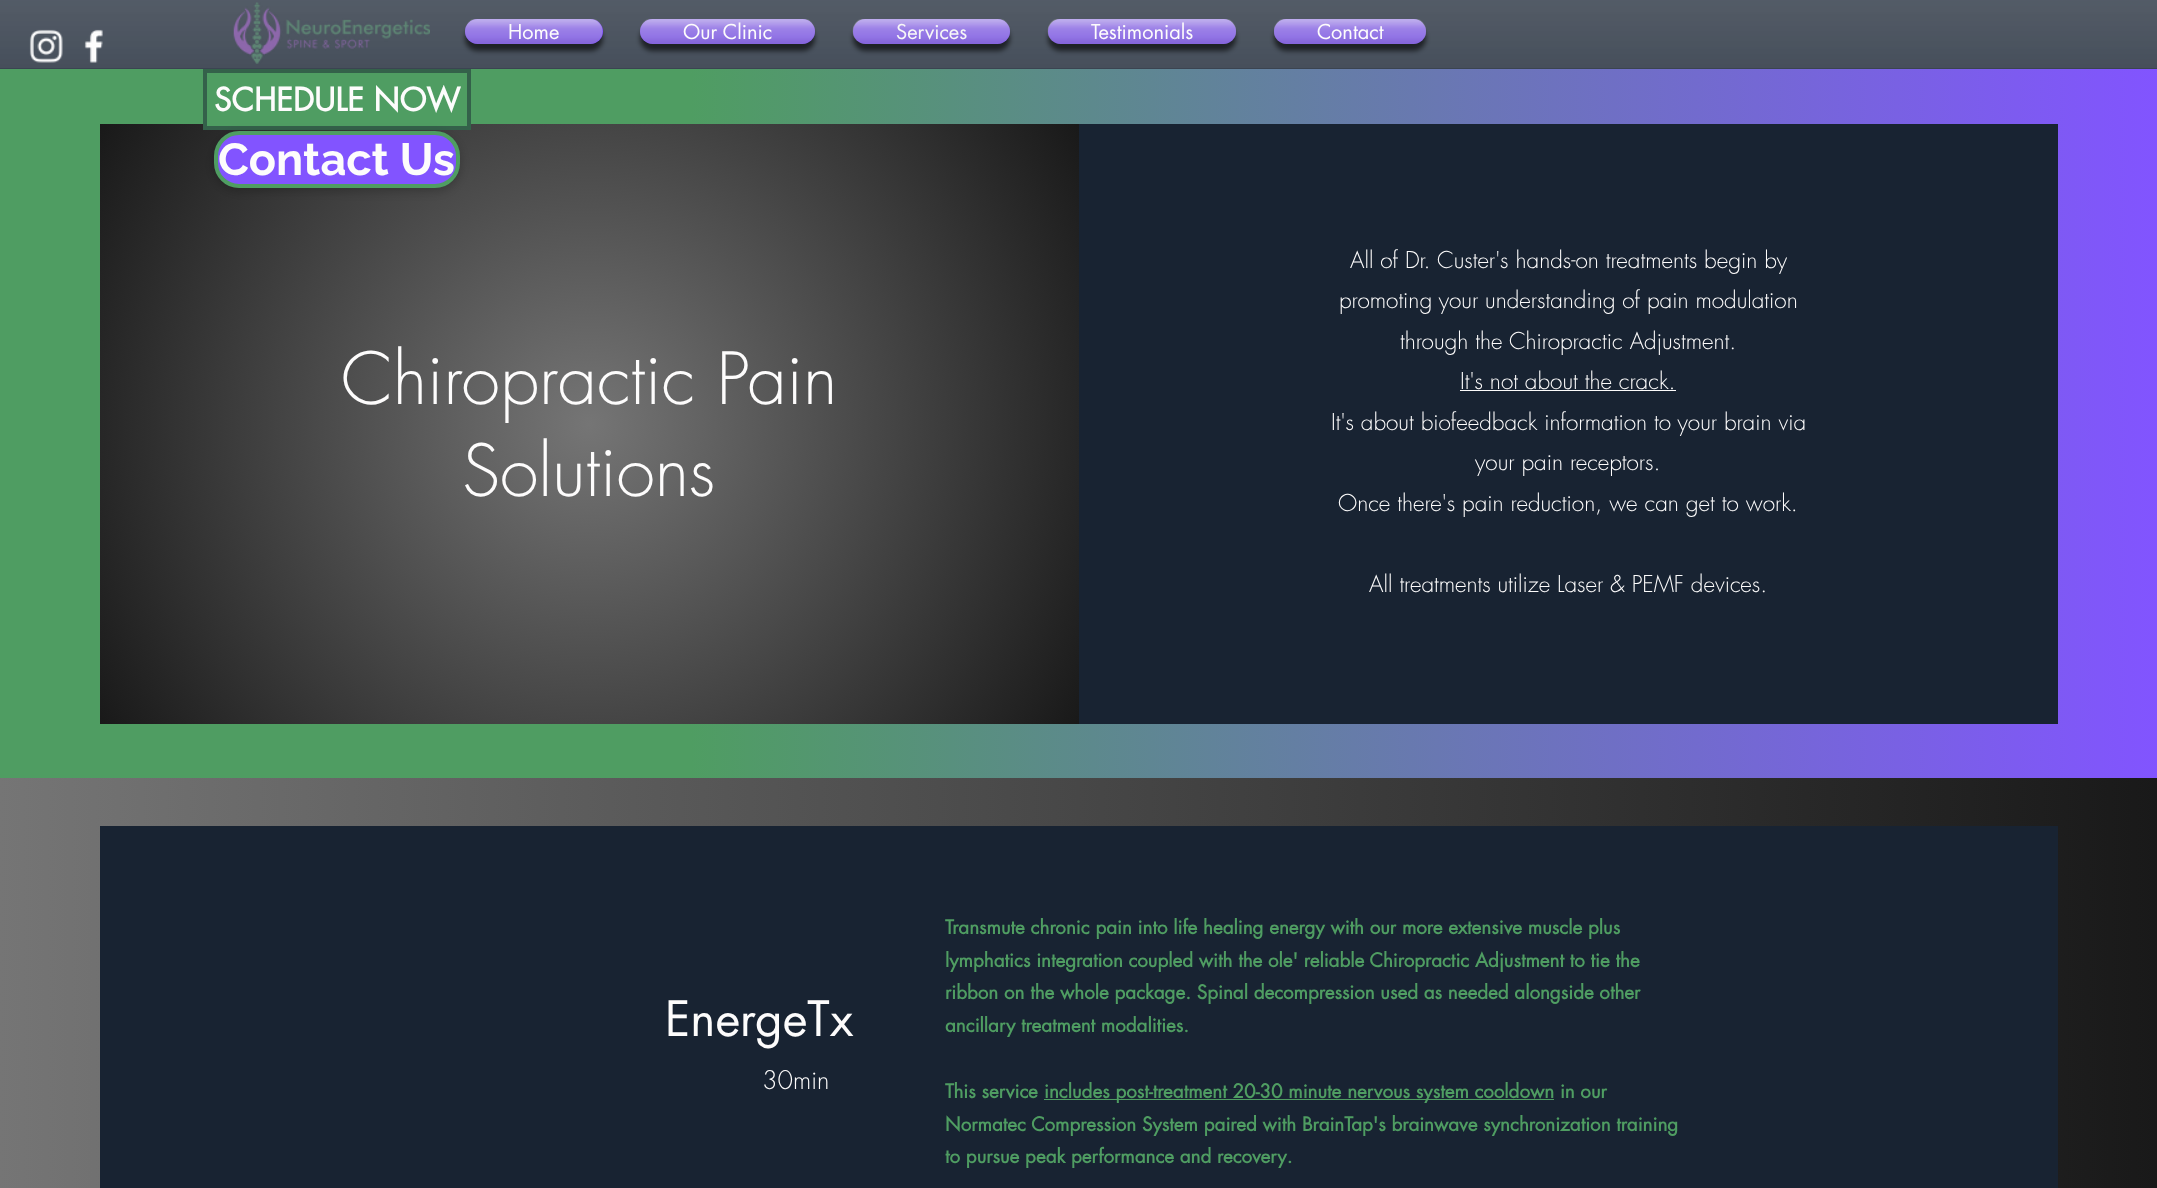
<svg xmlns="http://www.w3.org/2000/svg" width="2157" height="1188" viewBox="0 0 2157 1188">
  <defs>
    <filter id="blur1" x="-50%" y="-200%" width="200%" height="500%"><feGaussianBlur stdDeviation="2.5"/></filter>
    <linearGradient id="g1" gradientUnits="userSpaceOnUse" x1="0" y1="423" x2="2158" y2="423"><stop offset="0.32" stop-color="#4f9d62"/><stop offset="1" stop-color="#8254ff"/></linearGradient>
    <radialGradient id="g2" gradientUnits="userSpaceOnUse" cx="589" cy="424" r="574"><stop offset="0" stop-color="#757575"/><stop offset="1" stop-color="#191919"/></radialGradient>
    <filter id="blur2" x="-50%" y="-200%" width="200%" height="500%"><feGaussianBlur stdDeviation="5.5"/></filter>
    <linearGradient id="g3" gradientUnits="userSpaceOnUse" x1="0" y1="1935" x2="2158" y2="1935"><stop offset="0" stop-color="#757575"/><stop offset="1" stop-color="#191919"/></linearGradient>
  </defs>
  <rect width="100%" height="100%" fill="#ffffff"/>
  <rect x="0" y="0" width="2157" height="69" fill="#182332"/>
  <image x="0" y="0" width="2157" height="69" href="img1.png"/>
  <rect x="465" y="26" width="138" height="25" rx="12.5" fill="#000000" fill-opacity="0.6" filter="url(#blur1)"/>
  <rect x="465" y="19" width="138" height="25" rx="12.5" fill="#8254ff"/>
  <image x="465" y="19" width="138" height="25" href="img2.png"/>
  <image x="465" y="19" width="137" height="25" href="img3.png"/>
  <text x="508" y="39" font-family="futura" font-size="20" fill="#fdfcfc">Home</text>
  <rect x="640" y="26" width="175" height="25" rx="12.5" fill="#000000" fill-opacity="0.6" filter="url(#blur1)"/>
  <rect x="640" y="19" width="175" height="25" rx="12.5" fill="#8254ff"/>
  <image x="640" y="19" width="175" height="25" href="img4.png"/>
  <image x="640" y="19" width="175" height="25" href="img5.png"/>
  <text x="683" y="39" font-family="futura" font-size="20" fill="#fdfcfc">Our Clinic</text>
  <rect x="853" y="26" width="157" height="25" rx="12.5" fill="#000000" fill-opacity="0.6" filter="url(#blur1)"/>
  <rect x="853" y="19" width="157" height="25" rx="12.5" fill="#8254ff"/>
  <image x="852" y="19" width="158" height="25" href="img6.png"/>
  <image x="853" y="19" width="157" height="25" href="img7.png"/>
  <text x="896" y="39" font-family="futura" font-size="20" fill="#f7f7f7">Services</text>
  <rect x="1048" y="26" width="188" height="25" rx="12.5" fill="#000000" fill-opacity="0.6" filter="url(#blur1)"/>
  <rect x="1048" y="19" width="188" height="25" rx="12.5" fill="#8254ff"/>
  <image x="1047" y="19" width="189" height="25" href="img8.png"/>
  <image x="1048" y="19" width="188" height="25" href="img9.png"/>
  <text x="1091" y="39" font-family="futura" font-size="20" fill="#fdfcfc">Testimonials</text>
  <rect x="1274" y="26" width="152" height="25" rx="12.5" fill="#000000" fill-opacity="0.6" filter="url(#blur1)"/>
  <rect x="1274" y="19" width="152" height="25" rx="12.5" fill="#8254ff"/>
  <image x="1274" y="19" width="152" height="25" href="img10.png"/>
  <image x="1274" y="19" width="152" height="25" href="img11.png"/>
  <text x="1317" y="39" font-family="futura" font-size="20" fill="#fdfcfc">Contact</text>
  <image x="29" y="29" width="34" height="34" href="img12.png"/>
  <image x="84" y="29" width="19" height="34" href="img13.png"/>
  <image x="233" y="2" width="197" height="62" href="img14.png"/>
  <rect x="0" y="69" width="2157" height="709" fill="url(#g1)"/>
  <rect x="100" y="124" width="979" height="600" fill="url(#g2)"/>
  <rect x="207" y="124" width="260" height="2" fill="#4f9d62"/>
  <rect x="205" y="71" width="264" height="57" fill="none" stroke="#34614a" stroke-width="4"/>
  <text x="214" y="111" font-family="futura" font-size="31.25" font-weight="bold" fill="#fdfcfc">SCHEDULE NOW</text>
  <rect x="214" y="135" width="246" height="56" rx="25" fill="#000000" fill-opacity="0.23" filter="url(#blur2)"/>
  <rect x="216" y="133" width="242" height="53" rx="23" fill="#8254ff" stroke="#4f9d62" stroke-width="4"/>
  <text x="218" y="175" font-family="Raleway" font-size="45" font-weight="bold" fill="#fdfcfc">Contact Us</text>
  <rect x="1079" y="124" width="979" height="600" fill="#182332"/>
  <text x="341" y="404" font-family="futura" font-size="70" font-weight="300" fill="#fdfcfc">Chiropractic Pain</text>
  <text x="462" y="496" font-family="futura" font-size="70" font-weight="300" fill="#fdfcfc">Solutions</text>
  <text x="1350" y="268" font-family="futura" font-size="22.5" font-weight="300" fill="#fdfcfc">All of Dr. Custer's hands-on treatments begin by</text>
  <text x="1339" y="308" font-family="futura" font-size="22.5" font-weight="300" fill="#fdfcfc">promoting your understanding of pain modulation</text>
  <text x="1400" y="349" font-family="futura" font-size="22.5" font-weight="300" fill="#fdfcfc">through the Chiropractic Adjustment.</text>
  <text x="1460" y="389" font-family="futura" font-size="22.5" font-weight="300" fill="#fdfcfc">It's not about the crack.</text>
  <rect x="1460" y="390" width="216" height="1" fill="#fdfcfc"/>
  <text x="1331" y="430" font-family="futura" font-size="22.5" font-weight="300" fill="#fdfcfc">It's about biofeedback information to your brain via</text>
  <text x="1475" y="470" font-family="futura" font-size="22.5" font-weight="300" fill="#fdfcfc">your pain receptors.</text>
  <text x="1338" y="511" font-family="futura" font-size="22.5" font-weight="300" fill="#fdfcfc">Once there's pain reduction, we can get to work.</text>
  <text x="1369" y="592" font-family="futura" font-size="22.5" font-weight="300" fill="#fdfcfc">All treatments utilize Laser &amp; PEMF devices.</text>
  <rect x="0" y="778" width="2157" height="410" fill="url(#g3)"/>
  <rect x="100" y="826" width="1958" height="362" fill="#182332"/>
  <text x="665" y="1036" font-family="futura" font-size="47.5" fill="#fdfcfc">EnergeTx</text>
  <text x="945" y="934" font-family="futura" font-size="18.75" font-weight="bold" fill="#4f9d62">Transmute chronic pain into life healing energy with our more extensive muscle plus</text>
  <text x="945" y="967" font-family="futura" font-size="18.75" font-weight="bold" fill="#4f9d62">lymphatics integration coupled with the ole' reliable Chiropractic Adjustment to tie the</text>
  <text x="945" y="999" font-family="futura" font-size="18.75" font-weight="bold" fill="#4f9d62">ribbon on the whole package. Spinal decompression used as needed alongside other</text>
  <text x="945" y="1032" font-family="futura" font-size="18.75" font-weight="bold" fill="#4f9d62">ancillary treatment modalities.</text>
  <text x="945" y="1098" font-family="futura" font-size="18.75" font-weight="bold" fill="#4f9d62">This service</text>
  <rect x="1044" y="1099" width="510" height="1" fill="#4f9d62"/>
  <text x="1044" y="1098" font-family="futura" font-size="18.75" font-weight="bold" fill="#4f9d62">includes post-treatment 20-30 minute nervous system cooldown in our</text>
  <text x="945" y="1131" font-family="futura" font-size="18.75" font-weight="bold" fill="#4f9d62">Normatec Compression System paired with BrainTap's brainwave synchronization training</text>
  <text x="945" y="1163" font-family="futura" font-size="18.75" font-weight="bold" fill="#4f9d62">to pursue peak performance and recovery.</text>
  <text x="762" y="1089" font-family="futura" font-size="25" font-weight="300" fill="#fdfcfc">30min</text>
</svg>
